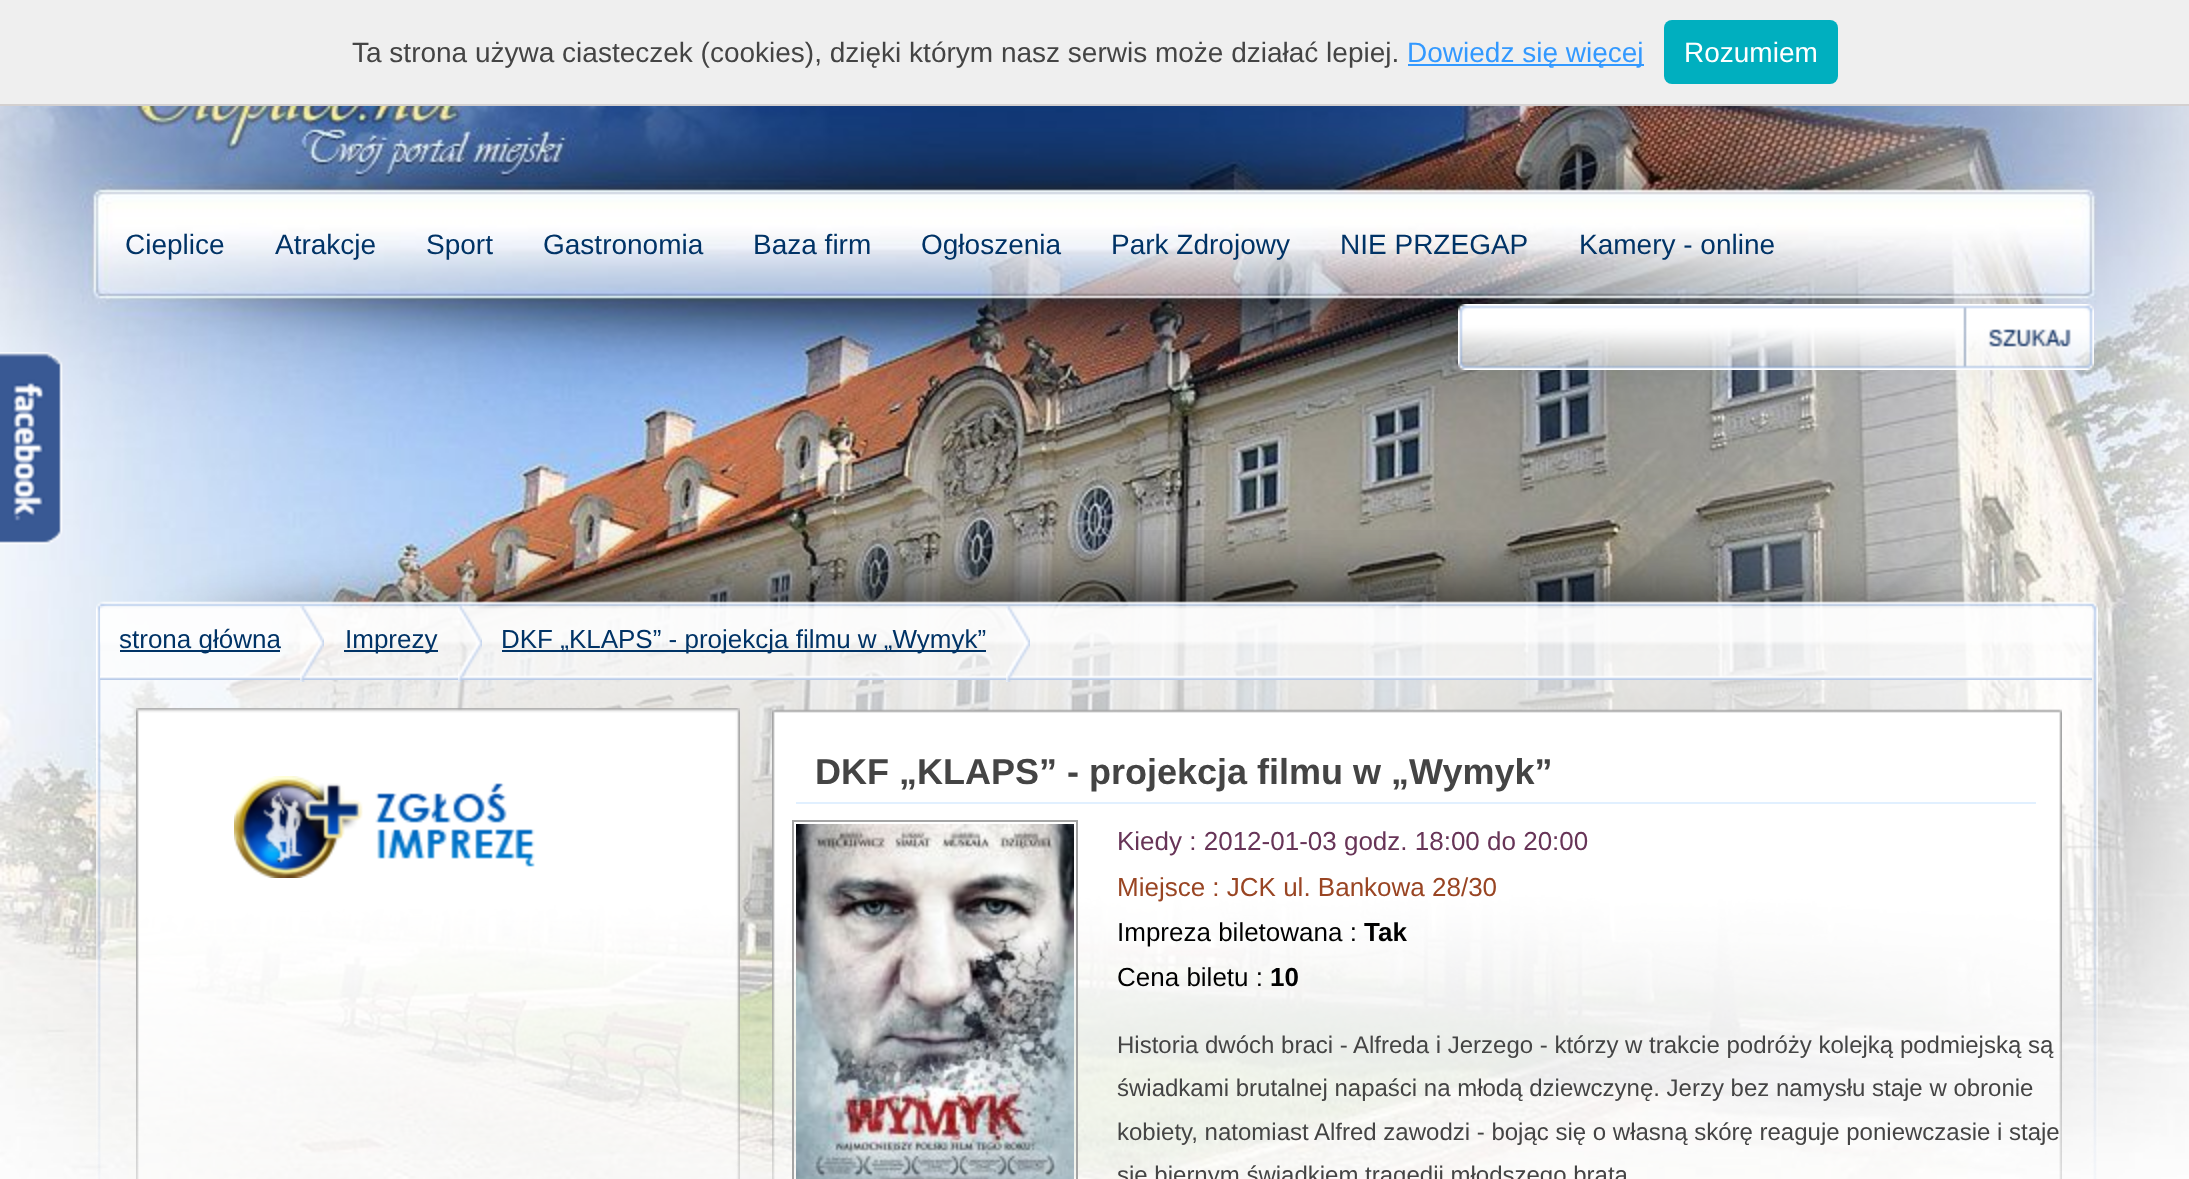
<svg xmlns="http://www.w3.org/2000/svg" width="2189" height="1179" viewBox="0 0 2189 1179">
  <rect width="100%" height="100%" fill="#ffffff"/>
  <image x="0" y="106" width="2189" height="1073" href="img1.png"/>
  <rect x="0" y="0" width="2189" height="104" fill="#efefef"/>
  <rect x="0" y="104" width="2189" height="2" fill="#d3d0d0"/>
  <text x="352" y="62" font-family="Liberation Sans" font-size="28" fill="#444444">Ta strona używa ciasteczek (cookies), dzięki którym nasz serwis może działać lepiej.</text>
  <rect x="1408" y="64" width="236" height="2" fill="#3399ff"/>
  <text x="1407" y="62" font-family="Liberation Sans" font-size="28" fill="#3399ff">Dowiedz się więcej</text>
  <rect x="1664" y="20" width="174" height="64" rx="8" fill="#00afbf"/>
  <text x="1684" y="62" font-family="Liberation Sans" font-size="28" fill="#ffffff">Rozumiem</text>
  <text x="125" y="254" font-family="Liberation Sans" font-size="28" fill="#003366">Cieplice</text>
  <text x="275" y="254" font-family="Liberation Sans" font-size="28" fill="#003366">Atrakcje</text>
  <text x="426" y="254" font-family="Liberation Sans" font-size="28" fill="#003366">Sport</text>
  <text x="543" y="254" font-family="Liberation Sans" font-size="28" fill="#003366">Gastronomia</text>
  <text x="753" y="254" font-family="Liberation Sans" font-size="28" fill="#003366">Baza firm</text>
  <text x="921" y="254" font-family="Liberation Sans" font-size="28" fill="#003366">Ogłoszenia</text>
  <text x="1111" y="254" font-family="Liberation Sans" font-size="28" fill="#003366">Park Zdrojowy</text>
  <text x="1340" y="254" font-family="Liberation Sans" font-size="28" fill="#003366">NIE PRZEGAP</text>
  <text x="1579" y="254" font-family="Liberation Sans" font-size="28" fill="#003366">Kamery - online</text>
  <image x="1458" y="304" width="636" height="66" href="img2.png"/>
  <image x="0" y="352" width="63" height="193" href="img3.png"/>
  <image x="96" y="530" width="2002" height="649" href="img4.png"/>
  <image x="100" y="606" width="1992" height="74" href="img5.png"/>
  <rect x="120" y="650" width="160" height="2" fill="#003366"/>
  <text x="119" y="648" font-family="Liberation Sans" font-size="26" fill="#003366">strona główna</text>
  <image x="300" y="606" width="24" height="76" href="img6.png"/>
  <rect x="344" y="650" width="94" height="2" fill="#003366"/>
  <text x="345" y="648" font-family="Liberation Sans" font-size="26" fill="#003366">Imprezy</text>
  <image x="458" y="606" width="24" height="76" href="img7.png"/>
  <rect x="502" y="650" width="484" height="2" fill="#003366"/>
  <text x="501" y="648" font-family="Liberation Sans" font-size="26" fill="#003366">DKF „KLAPS” - projekcja filmu w „Wymyk”</text>
  <image x="1006" y="606" width="24" height="76" href="img8.png"/>
  <image x="136" y="708" width="604" height="471" href="img9.png"/>
  <image x="234" y="776" width="301" height="102" href="img10.png"/>
  <image x="772" y="709" width="1290" height="470" href="img11.png"/>
  <rect x="796" y="802" width="1240" height="2" fill="#e1f0ff"/>
  <text x="815" y="784" font-family="Liberation Sans" font-size="36" font-weight="bold" fill="#444444">DKF „KLAPS” - projekcja filmu w „Wymyk”</text>
  <rect x="793" y="821" width="284" height="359" fill="none" stroke="#a4a4a4" stroke-width="2"/>
  <image x="796" y="824" width="278" height="355" href="img12.png"/>
  <text x="1117" y="850" font-family="Liberation Sans" font-size="26" fill="#673457">Kiedy : 2012-01-03 godz. 18:00 do 20:00</text>
  <text x="1117" y="896" font-family="Liberation Sans" font-size="26" fill="#994523">Miejsce : JCK ul. Bankowa 28/30</text>
  <text x="1117" y="941" font-family="Liberation Sans" font-size="26" fill="#000000">Impreza biletowana :</text>
  <text x="1364" y="941" font-family="Liberation Sans" font-size="26" font-weight="bold" fill="#000000">Tak</text>
  <text x="1117" y="986" font-family="Liberation Sans" font-size="26" fill="#000000">Cena biletu :</text>
  <text x="1270" y="986" font-family="Liberation Sans" font-size="26" font-weight="bold" fill="#000000">10</text>
  <text x="1117" y="1053" font-family="Liberation Sans" font-size="24" fill="#444444">Historia dwóch braci -</text>
  <text x="1353" y="1053" font-family="Liberation Sans" font-size="24" fill="#444444">Alfreda i Jerzego - którzy w trakcie podróży kolejką podmiejską są</text>
  <text x="1117" y="1096" font-family="Liberation Sans" font-size="24" fill="#444444">świadkami brutalnej napaści na młodą dziewczynę. Jerzy bez namysłu staje w obronie</text>
  <text x="1117" y="1140" font-family="Liberation Sans" font-size="24" fill="#444444">kobiety, natomiast Alfred zawodzi - bojąc się o własną skórę reaguje poniewczasie i staje</text>
  <text x="1117" y="1183" font-family="Liberation Sans" font-size="24" fill="#444444">się biernym świadkiem tragedii młodszego brata</text>
</svg>
